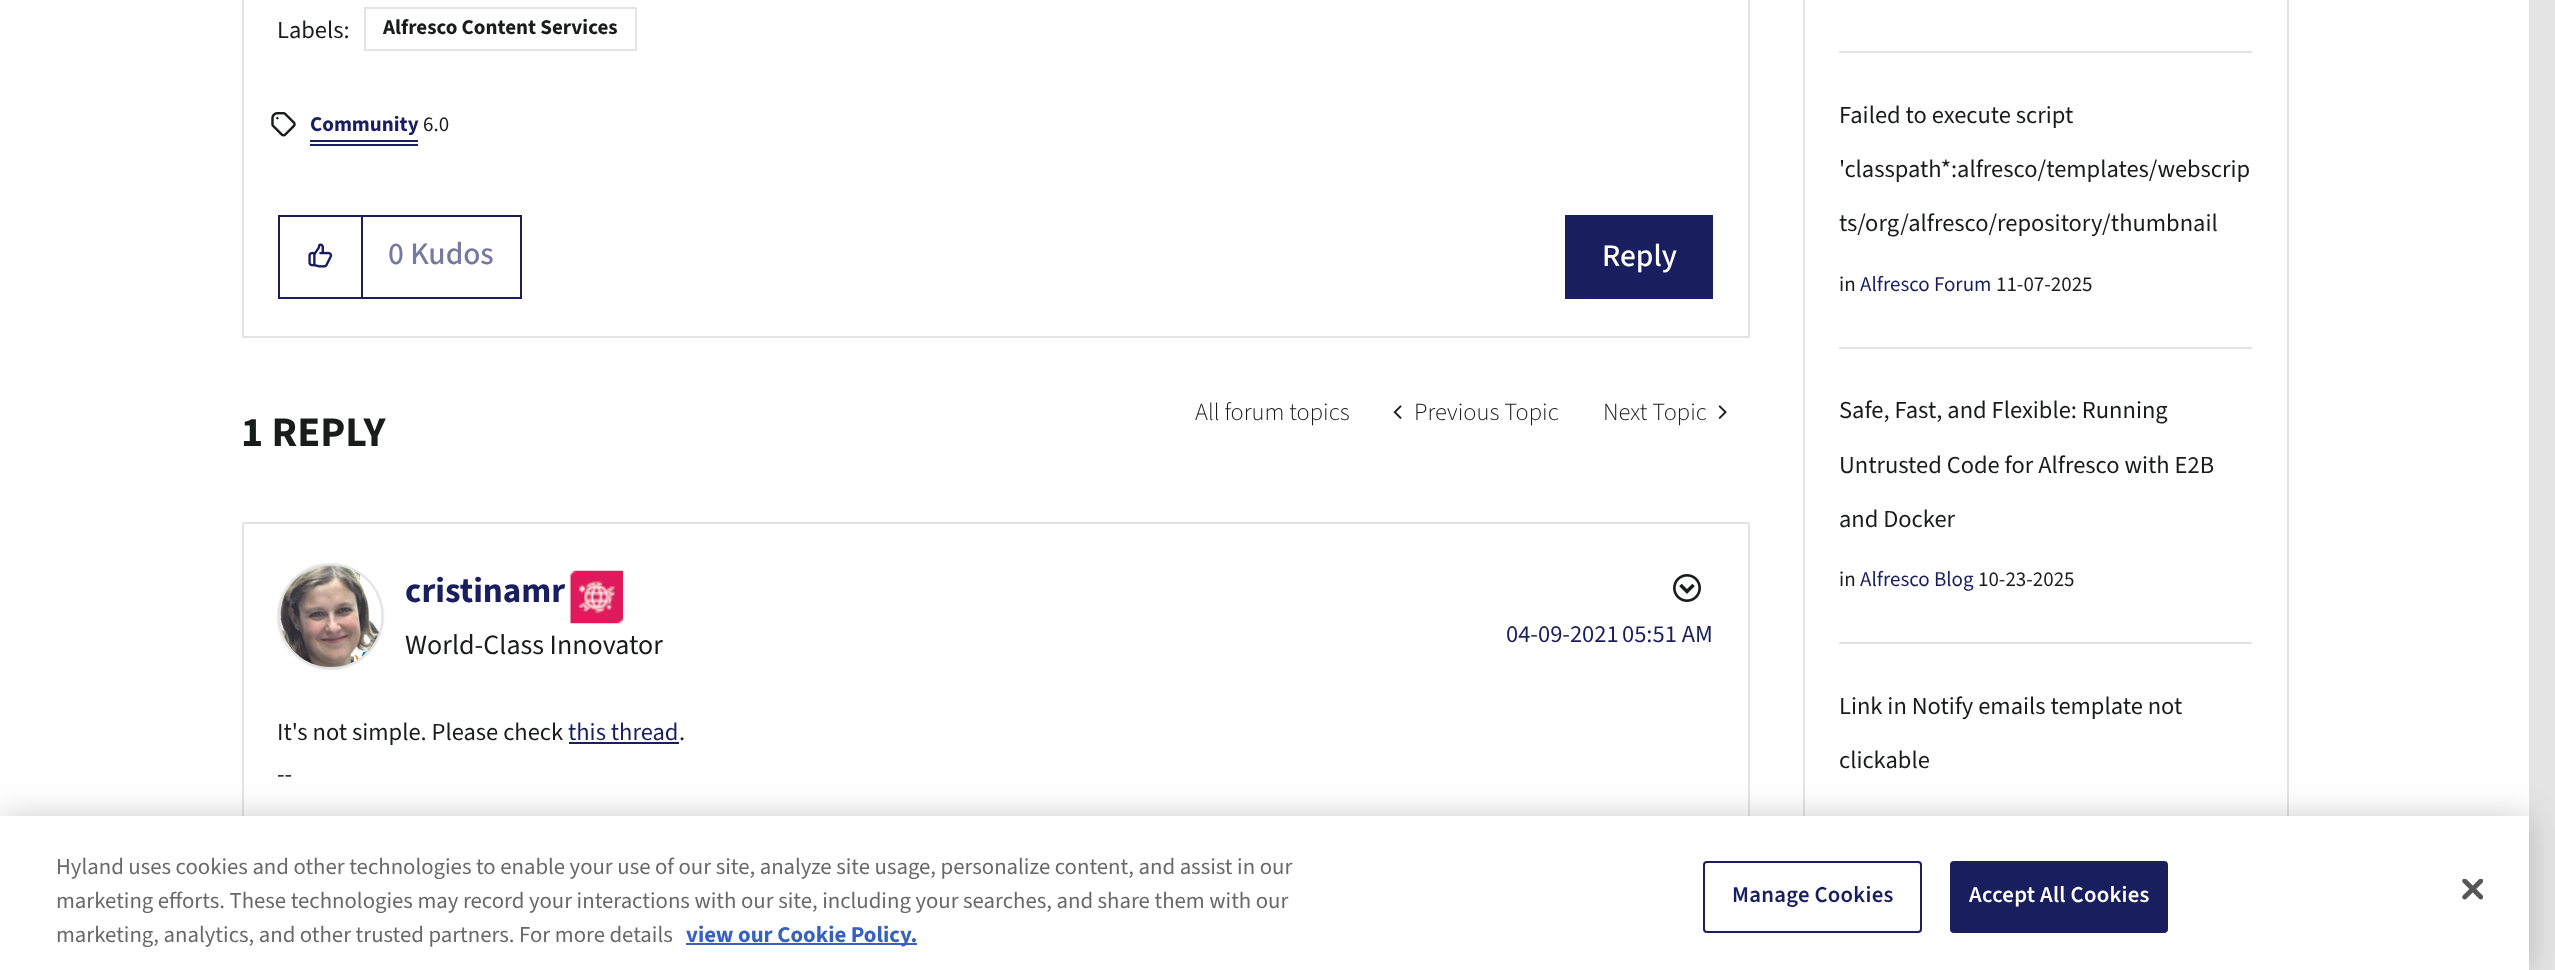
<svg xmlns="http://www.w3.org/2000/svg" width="2555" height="970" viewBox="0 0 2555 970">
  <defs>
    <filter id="blur1" x="-50%" y="-200%" width="200%" height="500%"><feGaussianBlur stdDeviation="1"/></filter>
    <filter id="blur2" x="-50%" y="-200%" width="200%" height="500%"><feGaussianBlur stdDeviation="16"/></filter>
  </defs>
  <rect width="100%" height="100%" fill="#e4e4e4"/>
  <rect x="0" y="0" width="2529" height="816" fill="#ffffff"/>
  <rect x="243" y="-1" width="1506" height="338" fill="none" stroke="#e4e4e4" stroke-width="2"/>
  <text x="277" y="38" font-family="'Source Sans 3'" font-size="24.5" fill="#191c1a">Labels:</text>
  <rect x="365" y="8" width="271" height="42" fill="none" stroke="#e4e4e4" stroke-width="2"/>
  <text x="383" y="34" font-family="'Source Sans 3'" font-size="21" font-weight="bold" fill="#191c1a">Alfresco Content Services</text>
  <image x="271" y="112" width="25" height="25" href="img1.png"/>
  <text x="310" y="131" font-family="'Source Sans 3'" font-size="21" font-weight="bold" fill="#191f5e">Community</text>
  <rect x="310" y="140" width="108" height="2" fill="#191f5e"/>
  <rect x="310" y="144" width="108" height="2" fill="#191f5e"/>
  <text x="423" y="131" font-family="'Source Sans 3'" font-size="21" fill="#191c1a">6.0</text>
  <rect x="279" y="216" width="242" height="82" fill="none" stroke="#191f5e" stroke-width="2"/>
  <rect x="361" y="217" width="2" height="81" fill="#191f5e"/>
  <image x="308" y="243" width="25" height="25" href="img2.png"/>
  <text x="388" y="264" font-family="'Source Sans 3'" font-size="31.5" font-weight="500" fill="#75799e">0 Kudos</text>
  <rect x="1565" y="215" width="148" height="84" fill="#191f5e"/>
  <text x="1602" y="266" font-family="'Source Sans 3'" font-size="31.5" font-weight="500" fill="#ffffff">Reply</text>
  <text x="1195" y="420" font-family="'Source Sans 3'" font-size="24.5" font-weight="300" fill="#191c1a">All forum topics</text>
  <image x="1393" y="405" width="9" height="14" href="img3.png"/>
  <text x="1414" y="420" font-family="'Source Sans 3'" font-size="24.5" font-weight="300" fill="#191c1a">Previous Topic</text>
  <text x="1603" y="420" font-family="'Source Sans 3'" font-size="24.5" font-weight="300" fill="#191c1a">Next Topic</text>
  <image x="1718" y="405" width="9" height="14" href="img4.png"/>
  <text x="241" y="446" font-family="'Source Sans 3'" font-size="42" font-weight="bold" fill="#191c1a">1 REPLY</text>
  <rect x="243" y="523" width="1506" height="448" fill="none" stroke="#e4e4e4" stroke-width="2"/>
  <rect x="278" y="564" width="105" height="105" rx="52.5" fill="#c4c4c4" filter="url(#blur1)"/>
  <circle cx="330.5" cy="616.5" r="51.5" fill="none" stroke="#e4e4e4" stroke-width="2"/>
  <image x="280" y="565" width="102" height="102" href="img5.png"/>
  <text x="405" y="602" font-family="'Source Sans 3'" font-size="35" font-weight="bold" fill="#191f5e">cristinamr</text>
  <image x="570" y="570" width="53" height="54" href="img6.png"/>
  <text x="405" y="654" font-family="'Source Sans 3'" font-size="28" fill="#191c1a">World-Class Innovator</text>
  <image x="1673" y="574" width="28" height="28" href="img7.png"/>
  <text x="1506" y="642" font-family="'Source Sans 3'" font-size="24.5" fill="#191f5e">04-09-2021</text>
  <text x="1622" y="642" font-family="'Source Sans 3'" font-size="24.5" fill="#191f5e">05:51 AM</text>
  <text x="277" y="740" font-family="'Source Sans 3'" font-size="24.5" fill="#191c1a">It's not simple. Please check</text>
  <text x="568" y="740" font-family="'Source Sans 3'" font-size="24.5" fill="#191f5e">this thread</text>
  <rect x="569" y="742" width="110" height="2" fill="#191f5e"/>
  <text x="679" y="740" font-family="'Source Sans 3'" font-size="24.5" fill="#191c1a">.</text>
  <text x="277" y="782" font-family="'Source Sans 3'" font-size="24.5" fill="#191c1a">--</text>
  <rect x="1804" y="-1" width="484" height="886" fill="none" stroke="#e4e4e4" stroke-width="2"/>
  <rect x="1839" y="51" width="413" height="2" fill="#e4e4e4"/>
  <rect x="1839" y="347" width="413" height="2" fill="#e4e4e4"/>
  <text x="1839" y="123" font-family="'Source Sans 3'" font-size="24.5" fill="#191c1a">Failed to execute script</text>
  <text x="1839" y="177" font-family="'Source Sans 3'" font-size="24.5" fill="#191c1a">'classpath*:alfresco/templates/webscrip</text>
  <text x="1839" y="231" font-family="'Source Sans 3'" font-size="24.5" fill="#191c1a">ts/org/alfresco/repository/thumbnail</text>
  <text x="1839" y="291" font-family="'Source Sans 3'" font-size="21" fill="#191c1a">in</text>
  <text x="1860" y="291" font-family="'Source Sans 3'" font-size="21" fill="#191f5e">Alfresco Forum</text>
  <text x="1996" y="291" font-family="'Source Sans 3'" font-size="21" fill="#191c1a">11-07-2025</text>
  <rect x="1839" y="642" width="413" height="2" fill="#e4e4e4"/>
  <text x="1839" y="418" font-family="'Source Sans 3'" font-size="24.5" fill="#191c1a">Safe, Fast, and Flexible: Running</text>
  <text x="1839" y="473" font-family="'Source Sans 3'" font-size="24.5" fill="#191c1a">Untrusted Code for Alfresco with E2B</text>
  <text x="1839" y="527" font-family="'Source Sans 3'" font-size="24.5" fill="#191c1a">and Docker</text>
  <text x="1839" y="586" font-family="'Source Sans 3'" font-size="21" fill="#191c1a">in</text>
  <text x="1860" y="586" font-family="'Source Sans 3'" font-size="21" fill="#191f5e">Alfresco Blog</text>
  <text x="1978" y="586" font-family="'Source Sans 3'" font-size="21" fill="#191c1a">10-23-2025</text>
  <text x="1839" y="714" font-family="'Source Sans 3'" font-size="24.5" fill="#191c1a">Link in Notify emails template not</text>
  <text x="1839" y="768" font-family="'Source Sans 3'" font-size="24.5" fill="#191c1a">clickable</text>
  <rect x="0" y="816" width="2529" height="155" fill="#000000" fill-opacity="0.2" filter="url(#blur2)"/>
  <rect x="0" y="816" width="2529" height="154" fill="#ffffff"/>
  <text x="56" y="874" font-family="'Source Sans 3'" font-size="22.75" fill="#696969">Hyland uses cookies and other technologies to enable your use of our site, analyze site usage, personalize content, and assist in our</text>
  <text x="56" y="908" font-family="'Source Sans 3'" font-size="22.75" fill="#696969">marketing efforts. These technologies may record your interactions with our site, including your searches, and share them with our</text>
  <text x="56" y="942" font-family="'Source Sans 3'" font-size="22.75" fill="#696969">marketing, analytics, and other trusted partners. For more details</text>
  <rect x="686" y="943" width="231" height="2" fill="#3860be"/>
  <text x="686" y="942" font-family="'Source Sans 3'" font-size="22.75" font-weight="bold" fill="#3860be">view our Cookie Policy.</text>
  <rect x="1704" y="862" width="217" height="70" rx="3" fill="none" stroke="#191f5e" stroke-width="2"/>
  <text x="1732" y="902" font-family="'Source Sans 3'" font-size="22.75" font-weight="600" letter-spacing="0.25" fill="#191f5e">Manage Cookies</text>
  <rect x="1951" y="862" width="216" height="70" rx="3" fill="#191f5e" stroke="#191f5e" stroke-width="2"/>
  <text x="1969" y="902" font-family="'Source Sans 3'" font-size="22.75" font-weight="600" letter-spacing="0.25" fill="#ffffff">Accept All Cookies</text>
  <image x="2462" y="879" width="21" height="21" href="img8.png"/>
</svg>
